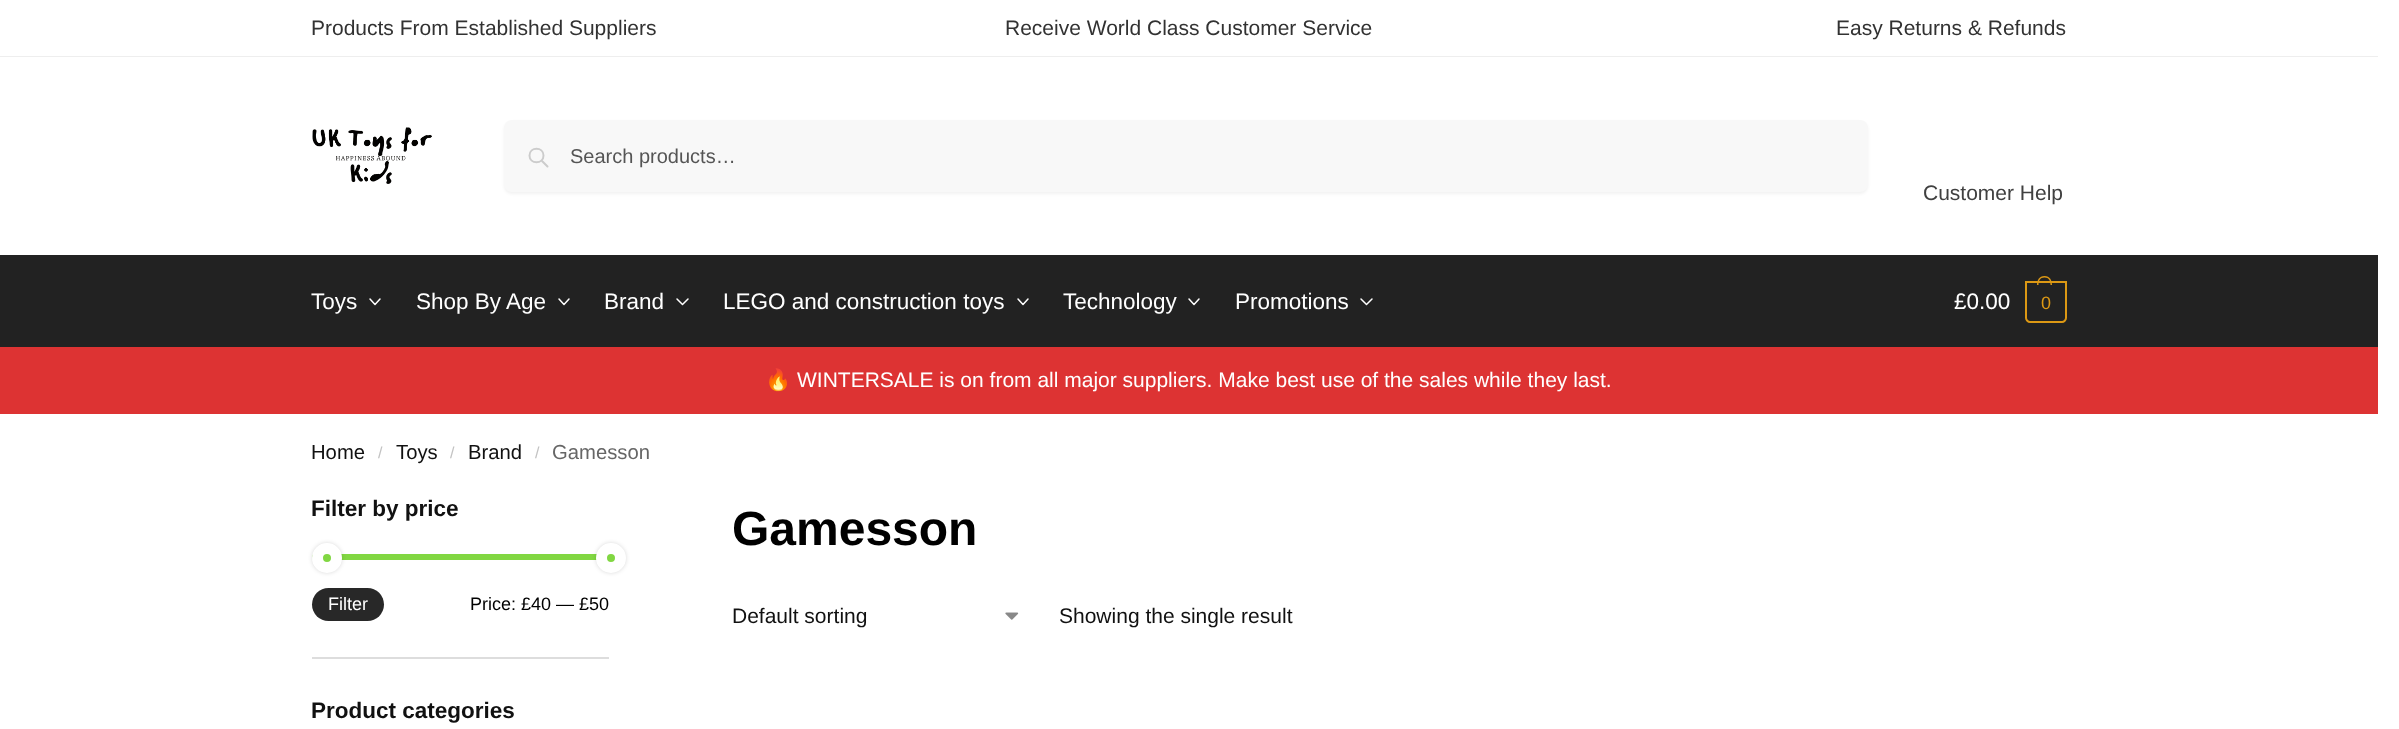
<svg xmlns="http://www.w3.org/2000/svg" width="2399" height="729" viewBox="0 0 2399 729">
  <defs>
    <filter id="blur1" x="-50%" y="-200%" width="200%" height="500%"><feGaussianBlur stdDeviation="1.5"/></filter>
    <filter id="blur2" x="-50%" y="-200%" width="200%" height="500%"><feGaussianBlur stdDeviation="2"/></filter>
  </defs>
  <rect width="100%" height="100%" fill="#ffffff"/>
  <rect x="0" y="56" width="2378" height="1" fill="#eeeeee"/>
  <text x="311" y="35" font-family="Liberation Sans" font-size="21" fill="#323232">Products From Established Suppliers</text>
  <text x="1005" y="35" font-family="Liberation Sans" font-size="21" fill="#323232">Receive World Class Customer Service</text>
  <text x="1836" y="35" font-family="Liberation Sans" font-size="21" fill="#323232">Easy Returns &amp; Refunds</text>
  <image x="312" y="127" width="120" height="57" href="img1.png"/>
  <rect x="504" y="122" width="1364" height="72" rx="8" fill="#000000" fill-opacity="0.05" filter="url(#blur1)"/>
  <rect x="504" y="120" width="1364" height="72" rx="8" fill="#f8f8f8"/>
  <path d="M547.5 166.5L541.5 160.5M543.5 155.5C543.5 164.5 529.5 164.5 529.5 155.5C529.5 146.5 543.5 146.5 543.5 155.5Z" fill="none" stroke="#cccccc" stroke-width="2" stroke-linecap="round" stroke-linejoin="round"/>
  <text x="570" y="163" font-family="Liberation Sans" font-size="20" fill="#555555">Search products…</text>
  <text x="1923" y="200" font-family="Liberation Sans" font-size="21" fill="#404040">Customer Help</text>
  <rect x="0" y="255" width="2378" height="92" fill="#222222"/>
  <text x="311" y="309" font-family="Liberation Sans" font-size="22.5" fill="#ffffff">Toys</text>
  <path d="M380 299L375 304.5L370 299" fill="none" stroke="#ffffff" stroke-width="1.5" stroke-linecap="round" stroke-linejoin="round"/>
  <text x="416" y="309" font-family="Liberation Sans" font-size="22.5" fill="#ffffff">Shop By Age</text>
  <path d="M569 299L564 304.5L559 299" fill="none" stroke="#ffffff" stroke-width="1.5" stroke-linecap="round" stroke-linejoin="round"/>
  <text x="604" y="309" font-family="Liberation Sans" font-size="22.5" fill="#ffffff">Brand</text>
  <path d="M688 299L682.5 304.5L677 299" fill="none" stroke="#ffffff" stroke-width="1.5" stroke-linecap="round" stroke-linejoin="round"/>
  <text x="723" y="309" font-family="Liberation Sans" font-size="22.5" fill="#ffffff">LEGO and construction toys</text>
  <path d="M1028 299L1023 304.5L1018 299" fill="none" stroke="#ffffff" stroke-width="1.5" stroke-linecap="round" stroke-linejoin="round"/>
  <text x="1063" y="309" font-family="Liberation Sans" font-size="22.5" fill="#ffffff">Technology</text>
  <path d="M1199 299L1194 304.5L1189 299" fill="none" stroke="#ffffff" stroke-width="1.5" stroke-linecap="round" stroke-linejoin="round"/>
  <text x="1235" y="309" font-family="Liberation Sans" font-size="22.5" fill="#ffffff">Promotions</text>
  <path d="M1372 299L1366.5 304.5L1361 299" fill="none" stroke="#ffffff" stroke-width="1.5" stroke-linecap="round" stroke-linejoin="round"/>
  <text x="1954" y="309" font-family="Liberation Sans" font-size="22.5" fill="#ffffff">£0.00</text>
  <path d="M2026 282H2066V318C2066 320 2064 322 2062 322H2030C2028 322 2026 320 2026 318Z" fill="none" stroke="#dc9814" stroke-width="2"/>
  <path d="M2044.5 276C2050 276 2052 280.5 2052 285H2037C2037 280.5 2039 276 2044.5 276ZM2044.5 277.5C2049 277.5 2050.5 281 2050.5 285H2038.5C2038.5 281 2040 277.5 2044.5 277.5Z" fill="#dc9814" fill-rule="evenodd"/>
  <text x="2041" y="309" font-family="Liberation Sans" font-size="18" letter-spacing="-1" fill="#dc9814">0</text>
  <rect x="0" y="347" width="2378" height="67" fill="#dd3333"/>
  <text x="765" y="387" font-family="Noto Color Emoji" font-size="21" fill="#ffffff">🔥</text>
  <text x="797" y="387" font-family="Liberation Sans" font-size="21" fill="#ffffff">WINTERSALE is on from all major suppliers. Make best use of the sales while they last.</text>
  <text x="311" y="459" font-family="Liberation Sans" font-size="20.25" fill="#111111">Home</text>
  <text x="378" y="458" font-family="Liberation Sans" font-size="16" fill="#c2c2c2">/</text>
  <text x="396" y="459" font-family="Liberation Sans" font-size="20.25" fill="#111111">Toys</text>
  <text x="450" y="458" font-family="Liberation Sans" font-size="16" fill="#c2c2c2">/</text>
  <text x="468" y="459" font-family="Liberation Sans" font-size="20.25" fill="#111111">Brand</text>
  <text x="535" y="458" font-family="Liberation Sans" font-size="16" fill="#c2c2c2">/</text>
  <text x="552" y="459" font-family="Liberation Sans" font-size="20.25" fill="#666666">Gamesson</text>
  <rect x="312" y="657" width="297" height="2" fill="#dddddd"/>
  <text x="311" y="516" font-family="Liberation Sans" font-size="22.5" font-weight="bold" fill="#111111">Filter by price</text>
  <rect x="312" y="554" width="297" height="6" rx="3" fill="#81d742"/>
  <rect x="312" y="543" width="30" height="30" rx="15" fill="#000000" fill-opacity="0.15" filter="url(#blur2)"/>
  <circle cx="327" cy="558" r="9.5" fill="#81d742" stroke="#ffffff" stroke-width="11"/>
  <rect x="596" y="543" width="30" height="30" rx="15" fill="#000000" fill-opacity="0.15" filter="url(#blur2)"/>
  <circle cx="611" cy="558" r="9.5" fill="#81d742" stroke="#ffffff" stroke-width="11"/>
  <rect x="312" y="588" width="72" height="33" rx="16.5" fill="#282828"/>
  <text x="328" y="610" font-family="Liberation Sans" font-size="18" fill="#ffffff">Filter</text>
  <text x="470" y="610" font-family="Liberation Sans" font-size="18" fill="#000000">Price: £40 — £50</text>
  <text x="311" y="718" font-family="Liberation Sans" font-size="22.5" font-weight="bold" fill="#111111">Product categories</text>
  <text x="732" y="545" font-family="Liberation Sans" font-size="48" font-weight="bold" fill="#000000">Gamesson</text>
  <image x="1005" y="612" width="14" height="8" href="img2.png"/>
  <text x="732" y="623" font-family="Liberation Sans" font-size="21" fill="#111111">Default sorting</text>
  <text x="1059" y="623" font-family="Liberation Sans" font-size="21" fill="#111111">Showing the single result</text>
</svg>
